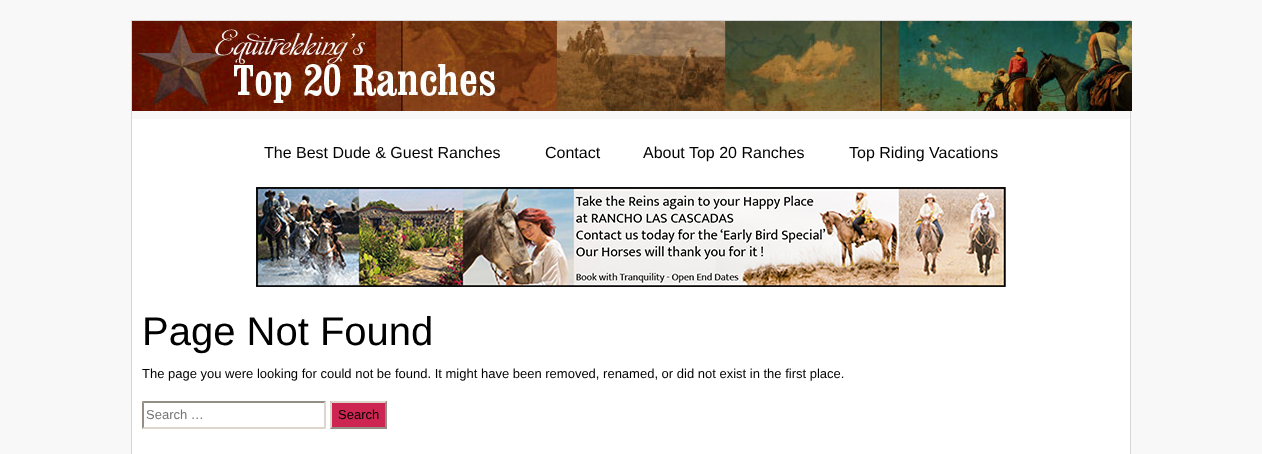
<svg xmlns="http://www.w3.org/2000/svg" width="1262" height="454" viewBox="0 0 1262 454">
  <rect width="100%" height="100%" fill="#f8f8f8"/>
  <rect x="132" y="119" width="998" height="335" fill="#ffffff"/>
  <rect x="131.5" y="20.5" width="999" height="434" fill="none" stroke="#d6d6d6"/>
  <image x="132" y="21" width="1000" height="90" href="img1.png"/>
  <text x="264" y="158" font-family="Liberation Sans" font-size="16" fill="#000000">The Best Dude &amp; Guest Ranches</text>
  <text x="545" y="158" font-family="Liberation Sans" font-size="16" fill="#000000">Contact</text>
  <text x="643" y="158" font-family="Liberation Sans" font-size="16" fill="#000000">About Top 20 Ranches</text>
  <text x="849" y="158" font-family="Liberation Sans" font-size="16" fill="#000000">Top Riding Vacations</text>
  <image x="256" y="187" width="750" height="100" href="img2.png"/>
  <text x="142" y="345" font-family="Liberation Sans" font-size="40" fill="#000000">Page Not Found</text>
  <text x="142" y="378" font-family="Liberation Sans" font-size="13" fill="#000000">The page you were looking for could not be found. It might have been removed, renamed, or did not exist in the first place.</text>
  <path d="M142 401H326L324 403H144Z" fill="#938f87"/>
  <path d="M326 401V429L324 427V403Z" fill="#dcd7ca"/>
  <path d="M326 429H142L144 427H324Z" fill="#dcd7ca"/>
  <path d="M142 429V401L144 403V427Z" fill="#938f87"/>
  <text x="146" y="419" font-family="Liberation Sans" font-size="13" fill="#757575">Search …</text>
  <rect x="330" y="401" width="57" height="28" fill="#cd2653"/>
  <path d="M330 401H387L385 403H332Z" fill="#dcd7ca"/>
  <path d="M387 401V429L385 427V403Z" fill="#938f87"/>
  <path d="M387 429H330L332 427H385Z" fill="#938f87"/>
  <path d="M330 429V401L332 403V427Z" fill="#dcd7ca"/>
  <text x="338" y="419" font-family="Liberation Sans" font-size="13" fill="#000000">Search</text>
</svg>
